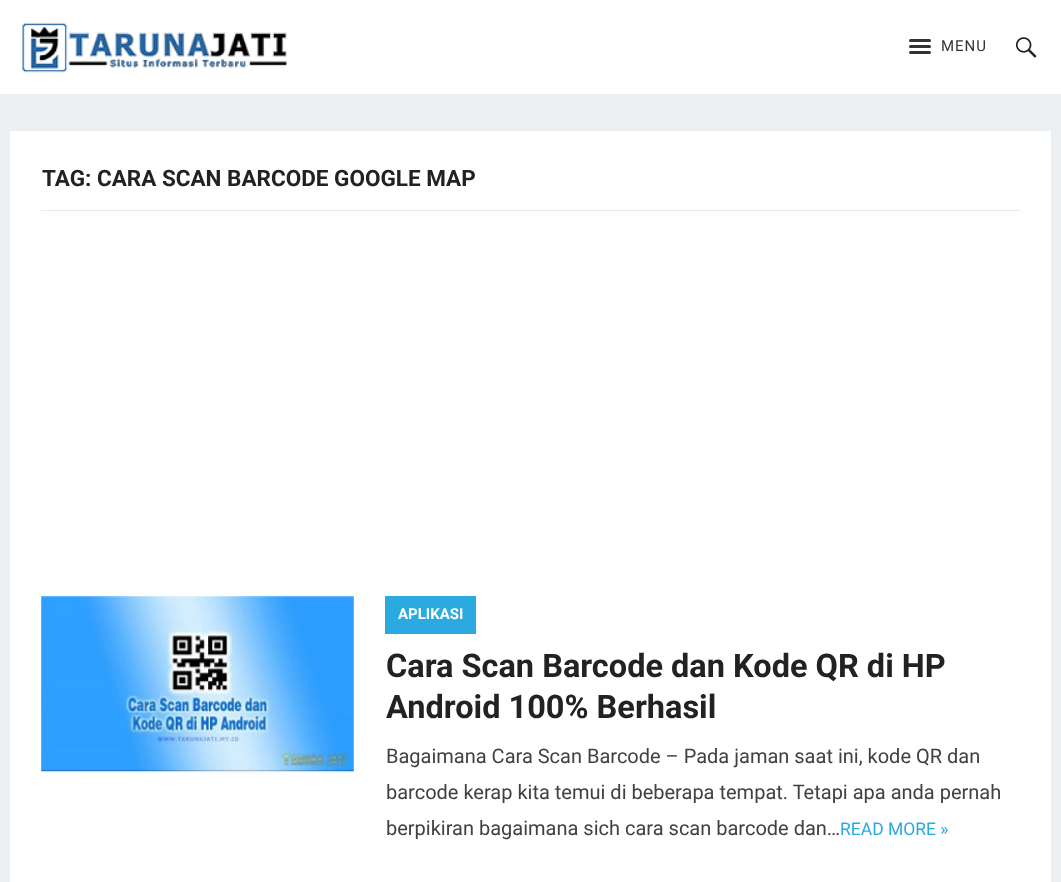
<svg xmlns="http://www.w3.org/2000/svg" width="1061" height="882" viewBox="0 0 1061 882">
  <rect width="100%" height="100%" fill="#eceff1"/>
  <rect x="0" y="0" width="1061" height="94" fill="#ffffff"/>
  <image x="22" y="22" width="266" height="51" href="img1.png"/>
  <rect x="909" y="39" width="22" height="3" rx="1.5" fill="#333333"/>
  <rect x="909" y="45" width="22" height="3" rx="1.5" fill="#333333"/>
  <rect x="909" y="51" width="22" height="3" rx="1.5" fill="#333333"/>
  <text x="941" y="51" font-family="Roboto" font-size="15" letter-spacing="1" fill="#333333">MENU</text>
  <image x="1016" y="37" width="21" height="21" href="img2.png"/>
  <rect x="10" y="131" width="1041" height="751" fill="#ffffff"/>
  <rect x="41" y="210" width="979" height="1" fill="#e9e9e9"/>
  <text x="42" y="186" font-family="Roboto" font-size="22.5" font-weight="bold" fill="#222222">TAG: CARA SCAN BARCODE GOOGLE MAP</text>
  <image x="41" y="596" width="313" height="177" href="img3.png"/>
  <rect x="385" y="596" width="91" height="38" fill="#2baae1"/>
  <text x="398" y="619" font-family="Roboto" font-size="15" font-weight="bold" fill="#ffffff">APLIKASI</text>
  <text x="386" y="677" font-family="Roboto" font-size="32.5" font-weight="bold" fill="#222222">Cara Scan Barcode dan Kode QR di HP</text>
  <text x="386" y="718" font-family="Roboto" font-size="32.5" font-weight="bold" fill="#222222">Android 100% Berhasil</text>
  <text x="386" y="763" font-family="Roboto" font-size="20" fill="#414141">Bagaimana Cara Scan Barcode – Pada jaman saat ini, kode QR dan</text>
  <text x="386" y="799" font-family="Roboto" font-size="20" fill="#414141">barcode kerap kita temui di beberapa tempat. Tetapi apa anda pernah</text>
  <text x="386" y="835" font-family="Roboto" font-size="20" fill="#414141">berpikiran bagaimana sich cara scan barcode dan…</text>
  <text x="840" y="835" font-family="Roboto" font-size="17.5" fill="#2baae1">READ MORE »</text>
</svg>
